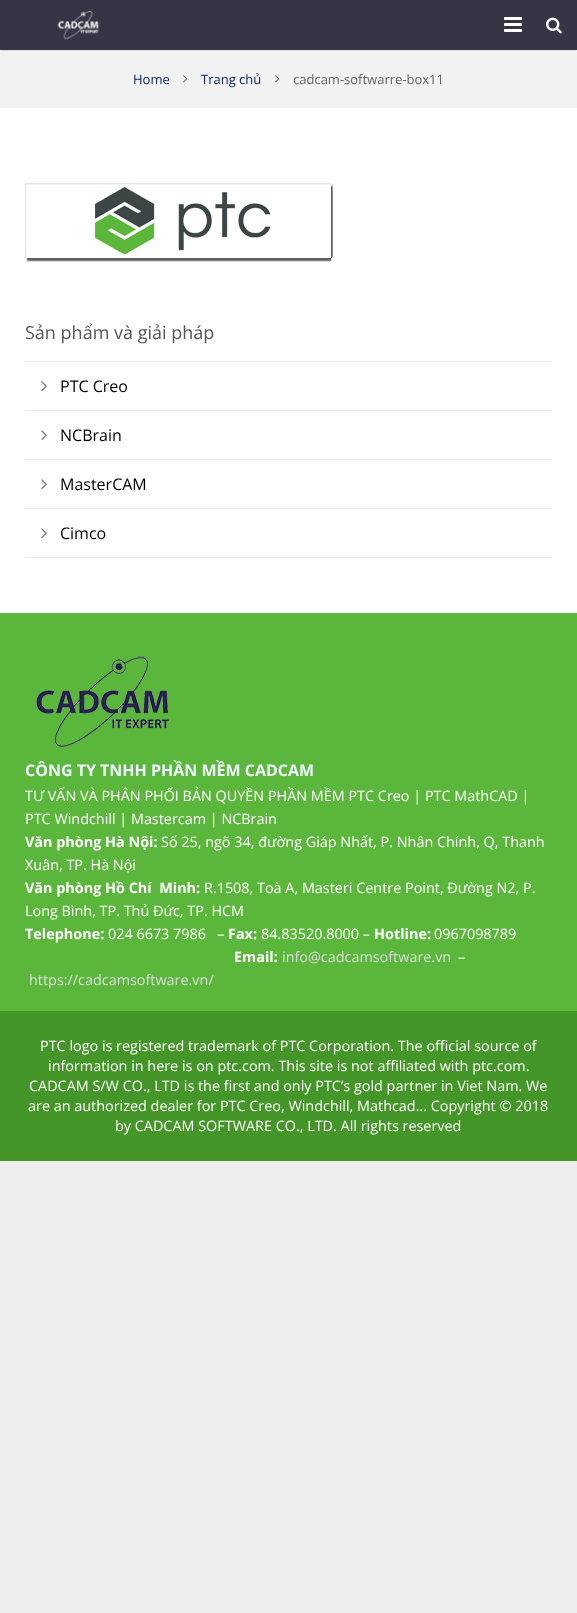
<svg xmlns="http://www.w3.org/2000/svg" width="577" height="1613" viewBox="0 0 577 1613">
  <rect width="100%" height="100%" fill="#eeeeee"/>
  <rect x="0" y="108" width="577" height="505" fill="#ffffff"/>
  <rect x="0" y="50" width="577" height="58" fill="#f2f2f2"/>
  <rect x="1" y="50" width="575" height="1" fill="#dfdfdf"/>
  <rect x="0" y="0" width="577" height="50" fill="#363545"/>
  <image x="57" y="10" width="42" height="30" href="img1.png"/>
  <image x="504" y="17" width="18" height="15" href="img2.png"/>
  <image x="546" y="17" width="16" height="17" href="img3.png"/>
  <text x="133" y="84" font-family="Open Sans" font-size="13" fill="#0c1d63">Home</text>
  <image x="183" y="75" width="5" height="8" href="img4.png"/>
  <text x="201" y="84" font-family="Open Sans" font-size="13" fill="#0c1d63">Trang chủ</text>
  <image x="275" y="75" width="5" height="8" href="img4.png"/>
  <text x="293" y="84" font-family="Open Sans" font-size="13" fill="#666666">cadcam-softwarre-box11</text>
  <image x="25" y="183" width="308" height="79" href="img5.png"/>
  <text x="25" y="339" font-family="Open Sans" font-size="18" fill="#555555">Sản phẩm và giải pháp</text>
  <rect x="25" y="557" width="527" height="1" fill="#e8e8e8"/>
  <rect x="25" y="361" width="527" height="1" fill="#e8e8e8"/>
  <image x="41" y="381" width="6" height="11" href="img6.png"/>
  <text x="60" y="392" font-family="Open Sans" font-size="16" fill="#000000">PTC Creo</text>
  <rect x="25" y="410" width="527" height="1" fill="#e8e8e8"/>
  <image x="41" y="430" width="6" height="11" href="img6.png"/>
  <text x="60" y="441" font-family="Open Sans" font-size="16" fill="#000000">NCBrain</text>
  <rect x="25" y="459" width="527" height="1" fill="#e8e8e8"/>
  <image x="41" y="479" width="6" height="11" href="img6.png"/>
  <text x="60" y="490" font-family="Open Sans" font-size="16" fill="#000000">MasterCAM</text>
  <rect x="25" y="508" width="527" height="1" fill="#e8e8e8"/>
  <image x="41" y="528" width="6" height="11" href="img6.png"/>
  <text x="60" y="539" font-family="Open Sans" font-size="16" fill="#000000">Cimco</text>
  <rect x="0" y="613" width="577" height="398" fill="#5bb73b"/>
  <image x="36" y="656" width="133" height="91" href="img7.png"/>
  <text x="25" y="776" font-family="Open Sans" font-size="16" font-weight="bold" fill="#f0f8ff">CÔNG TY TNHH PHẦN MỀM CADCAM</text>
  <text x="25" y="801" font-family="Open Sans" font-size="14.4" fill="#ffffff">TƯ VẤN VÀ PHÂN PHỐI BẢN QUYỀN PHẦN MỀM PTC Creo | PTC MathCAD |</text>
  <text x="25" y="824" font-family="Open Sans" font-size="14.4" fill="#ffffff">PTC Windchill | Mastercam | NCBrain</text>
  <text x="25" y="847" font-family="Open Sans" font-size="14.4" font-weight="bold" fill="#ffffff">Văn phòng Hà Nội:</text>
  <text x="161" y="847" font-family="Open Sans" font-size="14.4" fill="#ffffff">Số 25, ngõ 34, đường Giáp Nhất, P. Nhân Chính, Q, Thanh</text>
  <text x="25" y="870" font-family="Open Sans" font-size="14.4" fill="#ffffff">Xuân, TP. Hà Nội</text>
  <text x="25" y="893" font-family="Open Sans" font-size="14.4" font-weight="bold" fill="#ffffff" xml:space="preserve">Văn phòng Hồ Chí  Minh:</text>
  <text x="204" y="893" font-family="Open Sans" font-size="14.4" fill="#ffffff">R.1508, Toà A, Masteri Centre Point, Đường N2, P.</text>
  <text x="25" y="916" font-family="Open Sans" font-size="14.4" fill="#ffffff">Long Bình, TP. Thủ Đức, TP. HCM</text>
  <text x="25" y="939" font-family="Open Sans" font-size="14.4" font-weight="bold" fill="#ffffff">Telephone:</text>
  <text x="108" y="939" font-family="Open Sans" font-size="14.4" fill="#ffffff" xml:space="preserve">024 6673 7986   –</text>
  <text x="228" y="939" font-family="Open Sans" font-size="14.4" font-weight="bold" fill="#ffffff">Fax:</text>
  <text x="261" y="939" font-family="Open Sans" font-size="14.4" fill="#ffffff">84.83520.8000 –</text>
  <text x="374" y="939" font-family="Open Sans" font-size="14.4" font-weight="bold" fill="#ffffff">Hotline:</text>
  <text x="434" y="939" font-family="Open Sans" font-size="14.4" fill="#ffffff">0967098789</text>
  <text x="234" y="962" font-family="Open Sans" font-size="14.4" font-weight="bold" fill="#ffffff">Email:</text>
  <text x="282" y="962" font-family="Open Sans" font-size="14.4" fill="#dddddd">info@cadcamsoftware.vn</text>
  <text x="458" y="962" font-family="Open Sans" font-size="14.4" fill="#ffffff">–</text>
  <text x="29" y="985" font-family="Open Sans" font-size="14.4" fill="#dddddd">https://cadcamsoftware.vn/</text>
  <rect x="0" y="1011" width="577" height="150" fill="#449629"/>
  <text x="40" y="1051" font-family="Open Sans" font-size="14.4" fill="#ffffff">PTC logo is registered trademark of PTC Corporation. The official source of</text>
  <text x="48" y="1071" font-family="Open Sans" font-size="14.4" fill="#ffffff">information in here is on ptc.com. This site is not affiliated with ptc.com.</text>
  <text x="29" y="1091" font-family="Open Sans" font-size="14.4" fill="#ffffff">CADCAM S/W CO., LTD is the first and only PTC’s gold partner in Viet Nam. We</text>
  <text x="28" y="1111" font-family="Open Sans" font-size="14.4" fill="#ffffff">are an authorized dealer for PTC Creo, Windchill, Mathcad... Copyright © 2018</text>
  <text x="115" y="1131" font-family="Open Sans" font-size="14.4" fill="#ffffff">by CADCAM SOFTWARE CO., LTD. All rights reserved</text>
</svg>
